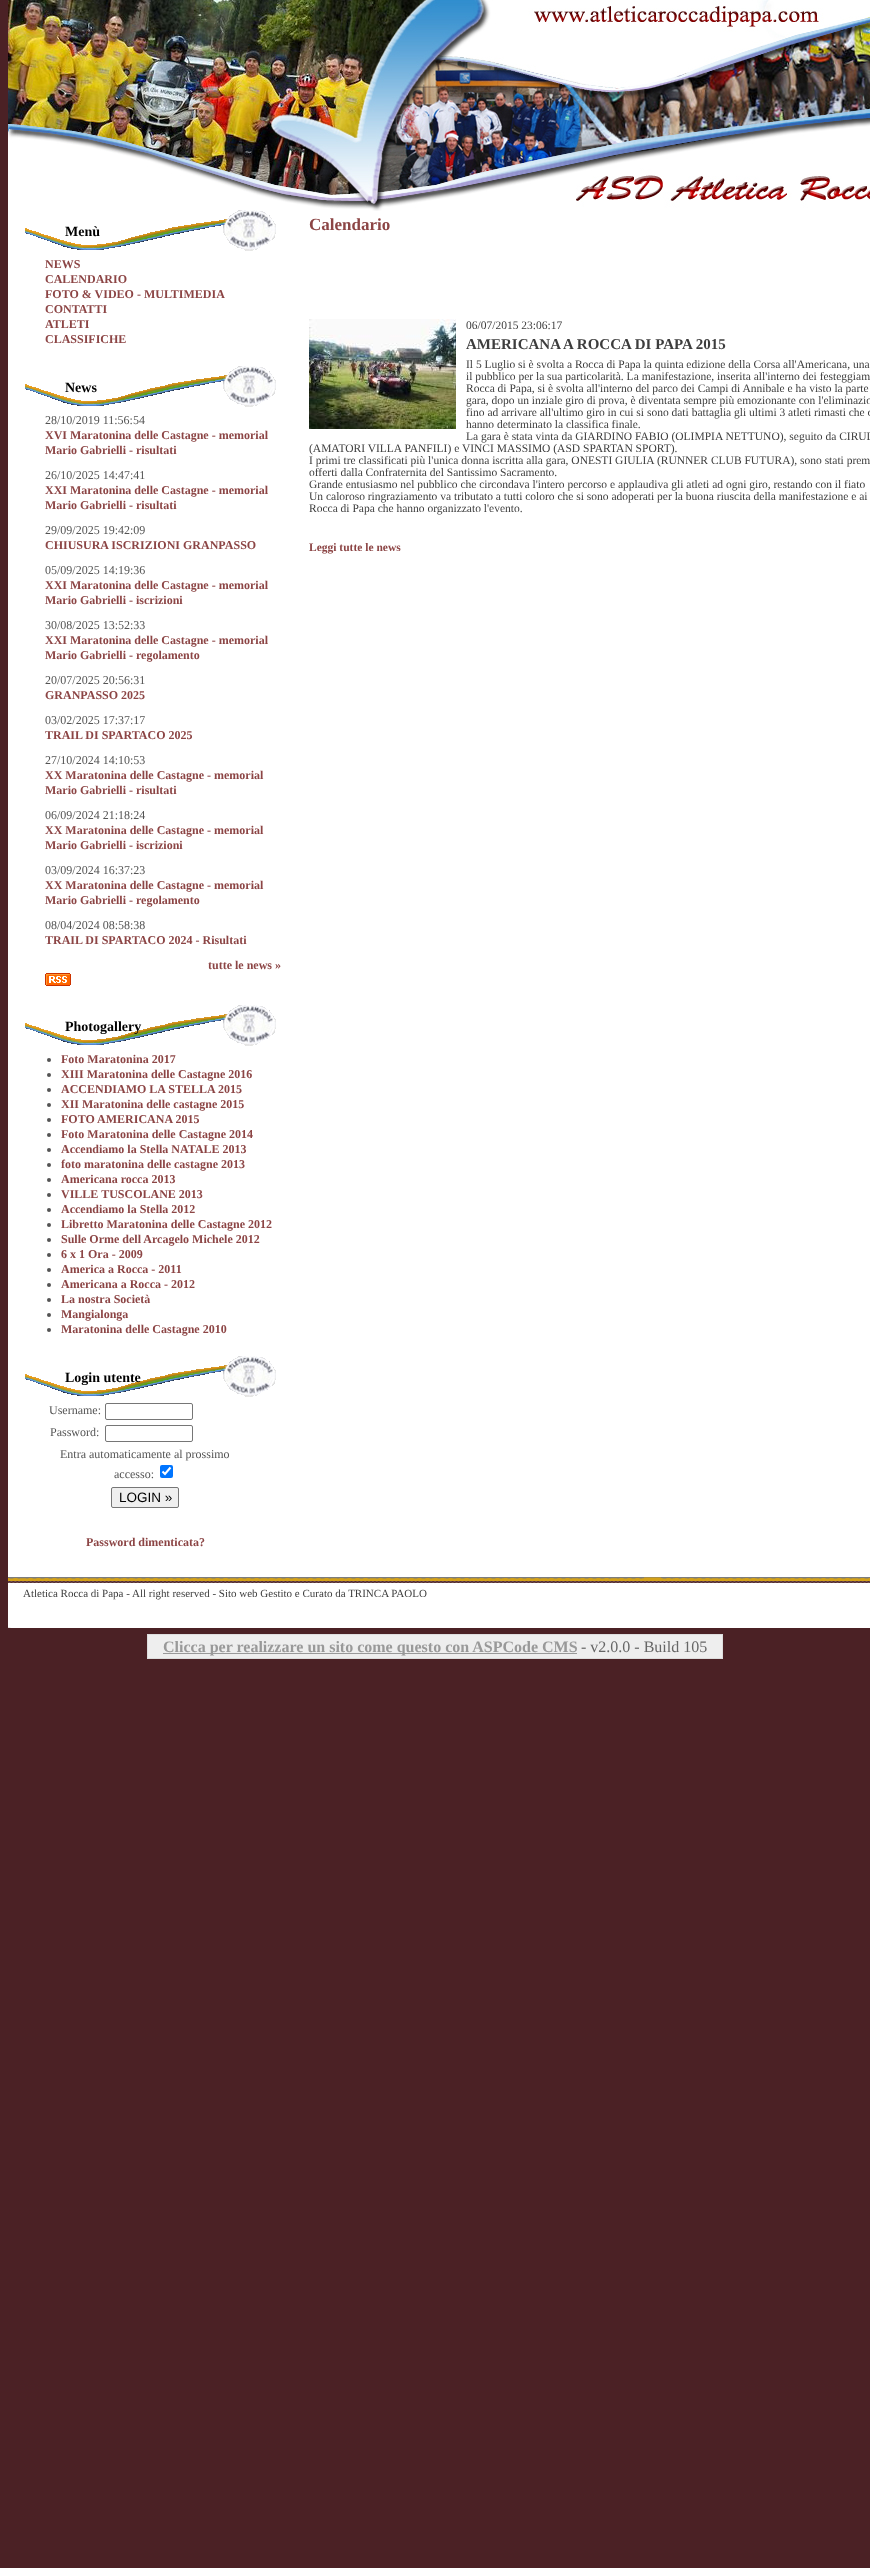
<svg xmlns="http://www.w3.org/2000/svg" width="870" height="2568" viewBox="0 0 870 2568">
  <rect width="100%" height="100%" fill="#4b2125"/>
  <rect x="8" y="211" width="862" height="1366" fill="#ffffff"/>
  <image x="8" y="0" width="862" height="211" href="img1.png"/>
  <image x="25" y="210" width="251" height="41" href="img2.png"/>
  <text x="65" y="236" font-family="Liberation Serif" font-size="14" font-weight="bold" fill="#000000">Menù</text>
  <text x="45" y="268" font-family="Liberation Serif" font-size="12" font-weight="bold" fill="#8c4545">NEWS</text>
  <text x="45" y="283" font-family="Liberation Serif" font-size="12" font-weight="bold" fill="#8c4545">CALENDARIO</text>
  <text x="45" y="298" font-family="Liberation Serif" font-size="12" font-weight="bold" fill="#8c4545">FOTO &amp; VIDEO - MULTIMEDIA</text>
  <text x="45" y="313" font-family="Liberation Serif" font-size="12" font-weight="bold" fill="#8c4545">CONTATTI</text>
  <text x="45" y="328" font-family="Liberation Serif" font-size="12" font-weight="bold" fill="#8c4545">ATLETI</text>
  <text x="45" y="343" font-family="Liberation Serif" font-size="12" font-weight="bold" fill="#8c4545">CLASSIFICHE</text>
  <image x="25" y="366" width="251" height="41" href="img2.png"/>
  <text x="65" y="392" font-family="Liberation Serif" font-size="14" font-weight="bold" fill="#000000">News</text>
  <text x="45" y="424" font-family="Liberation Serif" font-size="12" fill="#545454">28/10/2019 11:56:54</text>
  <text x="45" y="439" font-family="Liberation Serif" font-size="12" font-weight="bold" fill="#8c4545">XVI Maratonina delle Castagne - memorial</text>
  <text x="45" y="454" font-family="Liberation Serif" font-size="12" font-weight="bold" fill="#8c4545">Mario Gabrielli - risultati</text>
  <text x="45" y="479" font-family="Liberation Serif" font-size="12" fill="#545454">26/10/2025 14:47:41</text>
  <text x="45" y="494" font-family="Liberation Serif" font-size="12" font-weight="bold" fill="#8c4545">XXI Maratonina delle Castagne - memorial</text>
  <text x="45" y="509" font-family="Liberation Serif" font-size="12" font-weight="bold" fill="#8c4545">Mario Gabrielli - risultati</text>
  <text x="45" y="534" font-family="Liberation Serif" font-size="12" fill="#545454">29/09/2025 19:42:09</text>
  <text x="45" y="549" font-family="Liberation Serif" font-size="12" font-weight="bold" fill="#8c4545">CHIUSURA ISCRIZIONI GRANPASSO</text>
  <text x="45" y="574" font-family="Liberation Serif" font-size="12" fill="#545454">05/09/2025 14:19:36</text>
  <text x="45" y="589" font-family="Liberation Serif" font-size="12" font-weight="bold" fill="#8c4545">XXI Maratonina delle Castagne - memorial</text>
  <text x="45" y="604" font-family="Liberation Serif" font-size="12" font-weight="bold" fill="#8c4545">Mario Gabrielli - iscrizioni</text>
  <text x="45" y="629" font-family="Liberation Serif" font-size="12" fill="#545454">30/08/2025 13:52:33</text>
  <text x="45" y="644" font-family="Liberation Serif" font-size="12" font-weight="bold" fill="#8c4545">XXI Maratonina delle Castagne - memorial</text>
  <text x="45" y="659" font-family="Liberation Serif" font-size="12" font-weight="bold" fill="#8c4545">Mario Gabrielli - regolamento</text>
  <text x="45" y="684" font-family="Liberation Serif" font-size="12" fill="#545454">20/07/2025 20:56:31</text>
  <text x="45" y="699" font-family="Liberation Serif" font-size="12" font-weight="bold" fill="#8c4545">GRANPASSO 2025</text>
  <text x="45" y="724" font-family="Liberation Serif" font-size="12" fill="#545454">03/02/2025 17:37:17</text>
  <text x="45" y="739" font-family="Liberation Serif" font-size="12" font-weight="bold" fill="#8c4545">TRAIL DI SPARTACO 2025</text>
  <text x="45" y="764" font-family="Liberation Serif" font-size="12" fill="#545454">27/10/2024 14:10:53</text>
  <text x="45" y="779" font-family="Liberation Serif" font-size="12" font-weight="bold" fill="#8c4545">XX Maratonina delle Castagne - memorial</text>
  <text x="45" y="794" font-family="Liberation Serif" font-size="12" font-weight="bold" fill="#8c4545">Mario Gabrielli - risultati</text>
  <text x="45" y="819" font-family="Liberation Serif" font-size="12" fill="#545454">06/09/2024 21:18:24</text>
  <text x="45" y="834" font-family="Liberation Serif" font-size="12" font-weight="bold" fill="#8c4545">XX Maratonina delle Castagne - memorial</text>
  <text x="45" y="849" font-family="Liberation Serif" font-size="12" font-weight="bold" fill="#8c4545">Mario Gabrielli - iscrizioni</text>
  <text x="45" y="874" font-family="Liberation Serif" font-size="12" fill="#545454">03/09/2024 16:37:23</text>
  <text x="45" y="889" font-family="Liberation Serif" font-size="12" font-weight="bold" fill="#8c4545">XX Maratonina delle Castagne - memorial</text>
  <text x="45" y="904" font-family="Liberation Serif" font-size="12" font-weight="bold" fill="#8c4545">Mario Gabrielli - regolamento</text>
  <text x="45" y="929" font-family="Liberation Serif" font-size="12" fill="#545454">08/04/2024 08:58:38</text>
  <text x="45" y="944" font-family="Liberation Serif" font-size="12" font-weight="bold" fill="#8c4545">TRAIL DI SPARTACO 2024 - Risultati</text>
  <text x="208" y="969" font-family="Liberation Serif" font-size="12" font-weight="bold" fill="#8c4545">tutte le news »</text>
  <image x="45" y="973" width="26" height="13" href="img3.png"/>
  <image x="25" y="1005" width="251" height="41" href="img2.png"/>
  <text x="65" y="1031" font-family="Liberation Serif" font-size="14" font-weight="bold" fill="#000000">Photogallery</text>
  <circle cx="49" cy="1060" r="2" fill="#545454"/>
  <text x="61" y="1063" font-family="Liberation Serif" font-size="12" font-weight="bold" fill="#8c4545">Foto Maratonina 2017</text>
  <circle cx="49" cy="1075" r="2" fill="#545454"/>
  <text x="61" y="1078" font-family="Liberation Serif" font-size="12" font-weight="bold" fill="#8c4545">XIII Maratonina delle Castagne 2016</text>
  <circle cx="49" cy="1090" r="2" fill="#545454"/>
  <text x="61" y="1093" font-family="Liberation Serif" font-size="12" font-weight="bold" fill="#8c4545">ACCENDIAMO LA STELLA 2015</text>
  <circle cx="49" cy="1105" r="2" fill="#545454"/>
  <text x="61" y="1108" font-family="Liberation Serif" font-size="12" font-weight="bold" fill="#8c4545">XII Maratonina delle castagne 2015</text>
  <circle cx="49" cy="1120" r="2" fill="#545454"/>
  <text x="61" y="1123" font-family="Liberation Serif" font-size="12" font-weight="bold" fill="#8c4545">FOTO AMERICANA 2015</text>
  <circle cx="49" cy="1135" r="2" fill="#545454"/>
  <text x="61" y="1138" font-family="Liberation Serif" font-size="12" font-weight="bold" fill="#8c4545">Foto Maratonina delle Castagne 2014</text>
  <circle cx="49" cy="1150" r="2" fill="#545454"/>
  <text x="61" y="1153" font-family="Liberation Serif" font-size="12" font-weight="bold" fill="#8c4545">Accendiamo la Stella NATALE 2013</text>
  <circle cx="49" cy="1165" r="2" fill="#545454"/>
  <text x="61" y="1168" font-family="Liberation Serif" font-size="12" font-weight="bold" fill="#8c4545">foto maratonina delle castagne 2013</text>
  <circle cx="49" cy="1180" r="2" fill="#545454"/>
  <text x="61" y="1183" font-family="Liberation Serif" font-size="12" font-weight="bold" fill="#8c4545">Americana rocca 2013</text>
  <circle cx="49" cy="1195" r="2" fill="#545454"/>
  <text x="61" y="1198" font-family="Liberation Serif" font-size="12" font-weight="bold" fill="#8c4545">VILLE TUSCOLANE 2013</text>
  <circle cx="49" cy="1210" r="2" fill="#545454"/>
  <text x="61" y="1213" font-family="Liberation Serif" font-size="12" font-weight="bold" fill="#8c4545">Accendiamo la Stella 2012</text>
  <circle cx="49" cy="1225" r="2" fill="#545454"/>
  <text x="61" y="1228" font-family="Liberation Serif" font-size="12" font-weight="bold" fill="#8c4545">Libretto Maratonina delle Castagne 2012</text>
  <circle cx="49" cy="1240" r="2" fill="#545454"/>
  <text x="61" y="1243" font-family="Liberation Serif" font-size="12" font-weight="bold" fill="#8c4545">Sulle Orme dell Arcagelo Michele 2012</text>
  <circle cx="49" cy="1255" r="2" fill="#545454"/>
  <text x="61" y="1258" font-family="Liberation Serif" font-size="12" font-weight="bold" fill="#8c4545">6 x 1 Ora - 2009</text>
  <circle cx="49" cy="1270" r="2" fill="#545454"/>
  <text x="61" y="1273" font-family="Liberation Serif" font-size="12" font-weight="bold" fill="#8c4545">America a Rocca - 2011</text>
  <circle cx="49" cy="1285" r="2" fill="#545454"/>
  <text x="61" y="1288" font-family="Liberation Serif" font-size="12" font-weight="bold" fill="#8c4545">Americana a Rocca - 2012</text>
  <circle cx="49" cy="1300" r="2" fill="#545454"/>
  <text x="61" y="1303" font-family="Liberation Serif" font-size="12" font-weight="bold" fill="#8c4545">La nostra Società</text>
  <circle cx="49" cy="1315" r="2" fill="#545454"/>
  <text x="61" y="1318" font-family="Liberation Serif" font-size="12" font-weight="bold" fill="#8c4545">Mangialonga</text>
  <circle cx="49" cy="1330" r="2" fill="#545454"/>
  <text x="61" y="1333" font-family="Liberation Serif" font-size="12" font-weight="bold" fill="#8c4545">Maratonina delle Castagne 2010</text>
  <image x="25" y="1356" width="251" height="41" href="img2.png"/>
  <text x="65" y="1382" font-family="Liberation Serif" font-size="14" font-weight="bold" fill="#000000">Login utente</text>
  <text x="49" y="1414" font-family="Liberation Serif" font-size="12" fill="#545454">Username:</text>
  <rect x="105.5" y="1403.5" width="87" height="16" rx="1.5" fill="none" stroke="#767676"/>
  <text x="50" y="1436" font-family="Liberation Serif" font-size="12" fill="#545454">Password:</text>
  <rect x="105.5" y="1425.5" width="87" height="16" rx="1.5" fill="none" stroke="#767676"/>
  <text x="60" y="1458" font-family="Liberation Serif" font-size="12" fill="#545454">Entra automaticamente al prossimo</text>
  <text x="114" y="1478" font-family="Liberation Serif" font-size="12" fill="#545454">accesso:</text>
  <rect x="160" y="1465" width="13" height="13" rx="2" fill="#0075ff"/>
  <path d="M162.5 1471.5L165 1474L170.5 1467.5" fill="none" stroke="#ffffff" stroke-width="2.1"/>
  <rect x="111.5" y="1487.5" width="67" height="20" rx="1.5" fill="#efefef" stroke="#767676"/>
  <text x="119" y="1502" font-family="Liberation Sans" font-size="13.5" fill="#000000">LOGIN »</text>
  <text x="86" y="1546" font-family="Liberation Serif" font-size="12" font-weight="bold" fill="#8c4545">Password dimenticata?</text>
  <text x="309" y="230" font-family="Liberation Serif" font-size="17" font-weight="bold" fill="#8c4545">Calendario</text>
  <image x="309" y="319" width="147" height="110" href="img4.png"/>
  <text x="466" y="329" font-family="Liberation Serif" font-size="11.5" fill="#3d3d3d">06/07/2015 23:06:17</text>
  <text x="466" y="349" font-family="Liberation Serif" font-size="15" font-weight="bold" fill="#3d3d3d">AMERICANA A ROCCA DI PAPA 2015</text>
  <text x="466" y="368" font-family="Liberation Serif" font-size="11.5" fill="#3d3d3d">Il 5 Luglio si è svolta a Rocca di Papa la quinta edizione della Corsa all'Americana, una</text>
  <text x="466" y="380" font-family="Liberation Serif" font-size="11.5" fill="#3d3d3d">il pubblico per la sua particolarità. La manifestazione, inserita all'interno dei festeggiam</text>
  <text x="466" y="392" font-family="Liberation Serif" font-size="11.5" fill="#3d3d3d">Rocca di Papa, si è svolta all'interno del parco dei Campi di Annibale e ha visto la parte</text>
  <text x="466" y="404" font-family="Liberation Serif" font-size="11.5" fill="#3d3d3d">gara, dopo un inziale giro di prova, è diventata sempre più emozionante con l'eliminazio</text>
  <text x="466" y="416" font-family="Liberation Serif" font-size="11.5" fill="#3d3d3d">fino ad arrivare all'ultimo giro in cui si sono dati battaglia gli ultimi 3 atleti rimasti che c</text>
  <text x="466" y="428" font-family="Liberation Serif" font-size="11.5" fill="#3d3d3d">hanno determinato la classifica finale.</text>
  <text x="466" y="440" font-family="Liberation Serif" font-size="11.5" fill="#3d3d3d">La gara è stata vinta da GIARDINO FABIO (OLIMPIA NETTUNO), seguito da CIRUL</text>
  <text x="309" y="452" font-family="Liberation Serif" font-size="11.5" fill="#3d3d3d">(AMATORI VILLA PANFILI) e VINCI MASSIMO (ASD SPARTAN SPORT).</text>
  <text x="309" y="464" font-family="Liberation Serif" font-size="11.5" fill="#3d3d3d">I primi tre classificati più l'unica donna iscritta alla gara, ONESTI GIULIA (RUNNER CLUB FUTURA), sono stati prem</text>
  <text x="309" y="476" font-family="Liberation Serif" font-size="11.5" fill="#3d3d3d">offerti dalla Confraternita del Santissimo Sacramento.</text>
  <text x="309" y="488" font-family="Liberation Serif" font-size="11.5" fill="#3d3d3d">Grande entusiasmo nel pubblico che circondava l'intero percorso e applaudiva gli atleti ad ogni giro, restando con il fiato</text>
  <text x="309" y="500" font-family="Liberation Serif" font-size="11.5" fill="#3d3d3d">Un caloroso ringraziamento va tributato a tutti coloro che si sono adoperati per la buona riuscita della manifestazione e ai</text>
  <text x="309" y="512" font-family="Liberation Serif" font-size="11.5" fill="#3d3d3d">Rocca di Papa che hanno organizzato l'evento.</text>
  <text x="309" y="551" font-family="Liberation Serif" font-size="11.5" font-weight="bold" fill="#8c4545">Leggi tutte le news</text>
  <image x="8" y="1577" width="862" height="51" href="img5.png"/>
  <text x="23" y="1597" font-family="Liberation Serif" font-size="11" fill="#3d3d3d">Atletica Rocca di Papa - All right reserved - Sito web Gestito e Curato da TRINCA PAOLO</text>
  <rect x="148" y="1635" width="574" height="23" fill="#eeeeee"/>
  <rect x="163" y="1653" width="414" height="1" fill="#999999"/>
  <text x="163" y="1652" font-family="Liberation Serif" font-size="16" font-weight="bold" fill="#999999">Clicca per realizzare un sito come questo con ASPCode CMS</text>
  <rect x="147" y="1658" width="430" height="1" fill="#dddddd"/>
  <rect x="147" y="1634" width="576" height="1" fill="#dddddd"/>
  <rect x="147" y="1634" width="1" height="25" fill="#dddddd"/>
  <rect x="722" y="1634" width="1" height="25" fill="#dddddd"/>
  <rect x="577" y="1658" width="146" height="1" fill="#dddddd"/>
  <text x="581" y="1652" font-family="Liberation Serif" font-size="16" fill="#666666">- v2.0.0 - Build 105</text>
</svg>
